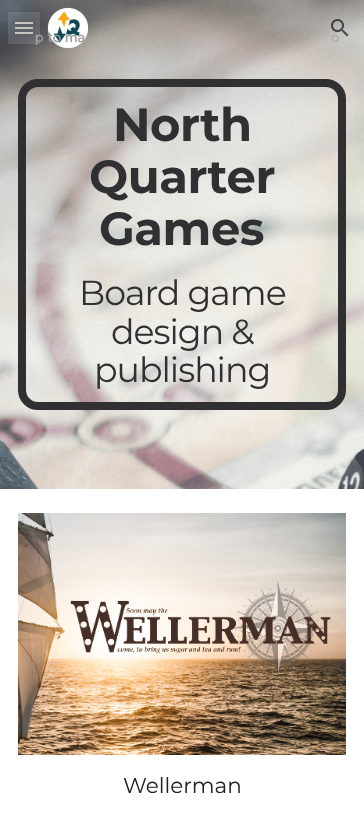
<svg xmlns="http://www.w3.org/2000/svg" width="364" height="822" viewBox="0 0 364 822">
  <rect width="100%" height="100%" fill="#ffffff"/>
  <image x="0" y="0" width="364" height="489" href="img3.png"/>
  <image x="47" y="7" width="41" height="41" href="img1.png"/>
  <text x="35" y="42" font-family="Google Sans" font-size="14" font-weight="500" letter-spacing="0.25" fill="#9d9c9c">p to ma</text>
  <image x="331" y="19" width="18" height="18" href="img2.png"/>
  <text x="331" y="42" font-family="Google Sans" font-size="14" font-weight="500" letter-spacing="0.25" fill="#b0a9a3">o</text>
  <rect x="15" y="22" width="18" height="2" fill="#c0bdb8"/>
  <rect x="15" y="27" width="18" height="2" fill="#c0bdb8"/>
  <rect x="15" y="32" width="18" height="2" fill="#c0bdb8"/>
  <rect x="8" y="12" width="32" height="32" fill="#ffffff" fill-opacity="0.12"/>
  <rect x="22" y="83" width="320" height="323" rx="16" fill="none" stroke="#303033" stroke-width="8"/>
  <text x="113" y="141" font-family="Montserrat" font-size="46.5" font-weight="bold" letter-spacing="-0.5" fill="#303033">North</text>
  <text x="89" y="193" font-family="Montserrat" font-size="46.5" font-weight="bold" letter-spacing="-0.5" fill="#303033">Quarter</text>
  <text x="99" y="245" font-family="Montserrat" font-size="46.5" font-weight="bold" letter-spacing="-0.5" fill="#303033">Games</text>
  <text x="79" y="305" font-family="Montserrat" font-size="34.75" letter-spacing="-1" fill="#303033">Board game</text>
  <text x="111" y="344" font-family="Montserrat" font-size="34.75" letter-spacing="-1" fill="#303033">design &amp;</text>
  <text x="94" y="382" font-family="Montserrat" font-size="34.75" letter-spacing="-1" fill="#303033">publishing</text>
  <image x="18" y="513" width="328" height="242" href="img4.png"/>
  <text x="123" y="793" font-family="Montserrat" font-size="21.5" fill="#212121">Wellerman</text>
</svg>
